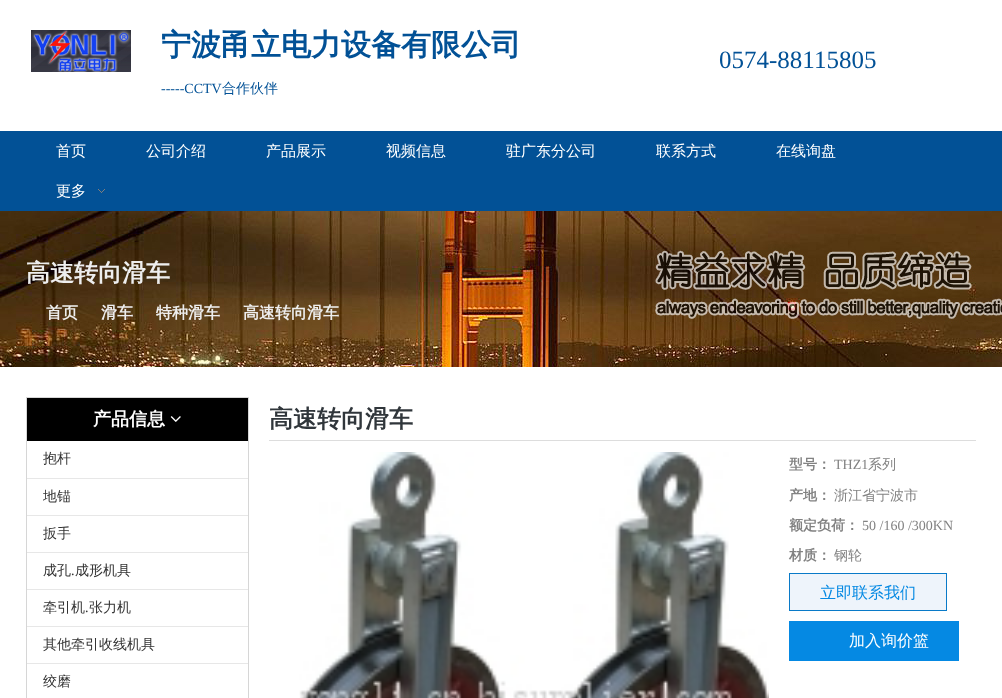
<svg xmlns="http://www.w3.org/2000/svg" width="1002" height="698" viewBox="0 0 1002 698">
  <rect width="100%" height="100%" fill="#ffffff"/>
  <image x="31" y="30" width="100" height="42" href="img1.png"/>
  <text x="161" y="55" font-family="WenQuanYi Zen Hei" font-size="30" font-weight="bold" fill="#025196">宁波甬立电力设备有限公司</text>
  <text x="161" y="93" font-family="Liberation Serif" font-size="14" fill="#025196">-----CCTV</text>
  <text x="222" y="93" font-family="WenQuanYi Zen Hei" font-size="14" font-weight="500" fill="#025196">合作伙伴</text>
  <text x="719" y="68" font-family="Liberation Serif" font-size="25" fill="#025196">0574-88115805</text>
  <rect x="0" y="131" width="1002" height="80" fill="#025196"/>
  <text x="56" y="156" font-family="WenQuanYi Zen Hei" font-size="15" font-weight="500" fill="#ffffff">首页</text>
  <text x="146" y="156" font-family="WenQuanYi Zen Hei" font-size="15" font-weight="500" fill="#ffffff">公司介绍</text>
  <text x="266" y="156" font-family="WenQuanYi Zen Hei" font-size="15" font-weight="500" fill="#ffffff">产品展示</text>
  <text x="386" y="156" font-family="WenQuanYi Zen Hei" font-size="15" font-weight="500" fill="#ffffff">视频信息</text>
  <text x="506" y="156" font-family="WenQuanYi Zen Hei" font-size="15" font-weight="500" fill="#ffffff">驻广东分公司</text>
  <text x="656" y="156" font-family="WenQuanYi Zen Hei" font-size="15" font-weight="500" fill="#ffffff">联系方式</text>
  <text x="776" y="156" font-family="WenQuanYi Zen Hei" font-size="15" font-weight="500" fill="#ffffff">在线询盘</text>
  <text x="56" y="196" font-family="WenQuanYi Zen Hei" font-size="15" font-weight="500" fill="#ffffff">更多</text>
  <image x="98" y="189" width="7" height="4" href="img2.png"/>
  <image x="0" y="211" width="1002" height="156" href="img3.png"/>
  <text x="26" y="281" font-family="WenQuanYi Zen Hei" font-size="24" font-weight="bold" fill="#eeeeee">高速转向滑车</text>
  <text x="46" y="318" font-family="WenQuanYi Zen Hei" font-size="16" font-weight="bold" fill="#eeeeee">首页</text>
  <text x="101" y="318" font-family="WenQuanYi Zen Hei" font-size="16" font-weight="bold" fill="#eeeeee">滑车</text>
  <text x="156" y="318" font-family="WenQuanYi Zen Hei" font-size="16" font-weight="bold" fill="#eeeeee">特种滑车</text>
  <text x="243" y="318" font-family="WenQuanYi Zen Hei" font-size="16" font-weight="bold" fill="#eeeeee">高速转向滑车</text>
  <rect x="26.5" y="397.5" width="222" height="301" fill="none" stroke="#d6d6d6"/>
  <rect x="27" y="398" width="221" height="43" fill="#000000"/>
  <text x="93" y="425" font-family="WenQuanYi Zen Hei" font-size="18" font-weight="bold" fill="#ffffff">产品信息</text>
  <image x="170" y="416" width="11" height="6" href="img4.png"/>
  <text x="43" y="463" font-family="WenQuanYi Zen Hei" font-size="14" font-weight="500" fill="#333333">抱杆</text>
  <rect x="27" y="478" width="221" height="1" fill="#e7e7e7"/>
  <text x="43" y="501" font-family="WenQuanYi Zen Hei" font-size="14" font-weight="500" fill="#333333">地锚</text>
  <rect x="27" y="515" width="221" height="1" fill="#e7e7e7"/>
  <text x="43" y="538" font-family="WenQuanYi Zen Hei" font-size="14" font-weight="500" fill="#333333">扳手</text>
  <rect x="27" y="552" width="221" height="1" fill="#e7e7e7"/>
  <text x="43" y="575" font-family="WenQuanYi Zen Hei" font-size="14" font-weight="500" fill="#333333">成孔</text>
  <text x="71" y="575" font-family="Liberation Serif" font-size="14" fill="#333333">.</text>
  <text x="75" y="575" font-family="WenQuanYi Zen Hei" font-size="14" font-weight="500" fill="#333333">成形机具</text>
  <rect x="27" y="589" width="221" height="1" fill="#e7e7e7"/>
  <text x="43" y="612" font-family="WenQuanYi Zen Hei" font-size="14" font-weight="500" fill="#333333">牵引机</text>
  <text x="85" y="612" font-family="Liberation Serif" font-size="14" fill="#333333">.</text>
  <text x="89" y="612" font-family="WenQuanYi Zen Hei" font-size="14" font-weight="500" fill="#333333">张力机</text>
  <rect x="27" y="626" width="221" height="1" fill="#e7e7e7"/>
  <text x="43" y="649" font-family="WenQuanYi Zen Hei" font-size="14" font-weight="500" fill="#333333">其他牵引收线机具</text>
  <rect x="27" y="663" width="221" height="1" fill="#e7e7e7"/>
  <text x="43" y="686" font-family="WenQuanYi Zen Hei" font-size="14" font-weight="500" fill="#333333">绞磨</text>
  <rect x="269" y="440" width="707" height="1" fill="#dddddd"/>
  <text x="269" y="427" font-family="WenQuanYi Zen Hei" font-size="24" font-weight="bold" fill="#30363b">高速转向滑车</text>
  <image x="299" y="452" width="470" height="246" href="img5.png"/>
  <text x="789" y="469" font-family="WenQuanYi Zen Hei" font-size="14" font-weight="bold" fill="#828282">型号：</text>
  <text x="834" y="469" font-family="Liberation Serif" font-size="14" fill="#828282">THZ1</text>
  <text x="868" y="469" font-family="WenQuanYi Zen Hei" font-size="14" font-weight="500" fill="#828282">系列</text>
  <text x="789" y="500" font-family="WenQuanYi Zen Hei" font-size="14" font-weight="bold" fill="#828282">产地：</text>
  <text x="834" y="500" font-family="WenQuanYi Zen Hei" font-size="14" font-weight="500" fill="#828282">浙江省宁波市</text>
  <text x="789" y="530" font-family="WenQuanYi Zen Hei" font-size="14" font-weight="bold" fill="#828282">额定负荷：</text>
  <text x="862" y="530" font-family="Liberation Serif" font-size="14" fill="#828282">50 /160 /300KN</text>
  <text x="789" y="560" font-family="WenQuanYi Zen Hei" font-size="14" font-weight="bold" fill="#828282">材质：</text>
  <text x="834" y="560" font-family="WenQuanYi Zen Hei" font-size="14" font-weight="500" fill="#828282">钢轮</text>
  <rect x="789.5" y="573.5" width="157" height="37" fill="#eef4fb" stroke="#097ac8"/>
  <text x="820" y="598" font-family="WenQuanYi Zen Hei" font-size="16" font-weight="500" fill="#0589e3">立即联系我们</text>
  <rect x="789" y="621" width="170" height="40" fill="#0589e3"/>
  <text x="849" y="646" font-family="WenQuanYi Zen Hei" font-size="16" font-weight="500" fill="#ffffff">加入询价篮</text>
</svg>
